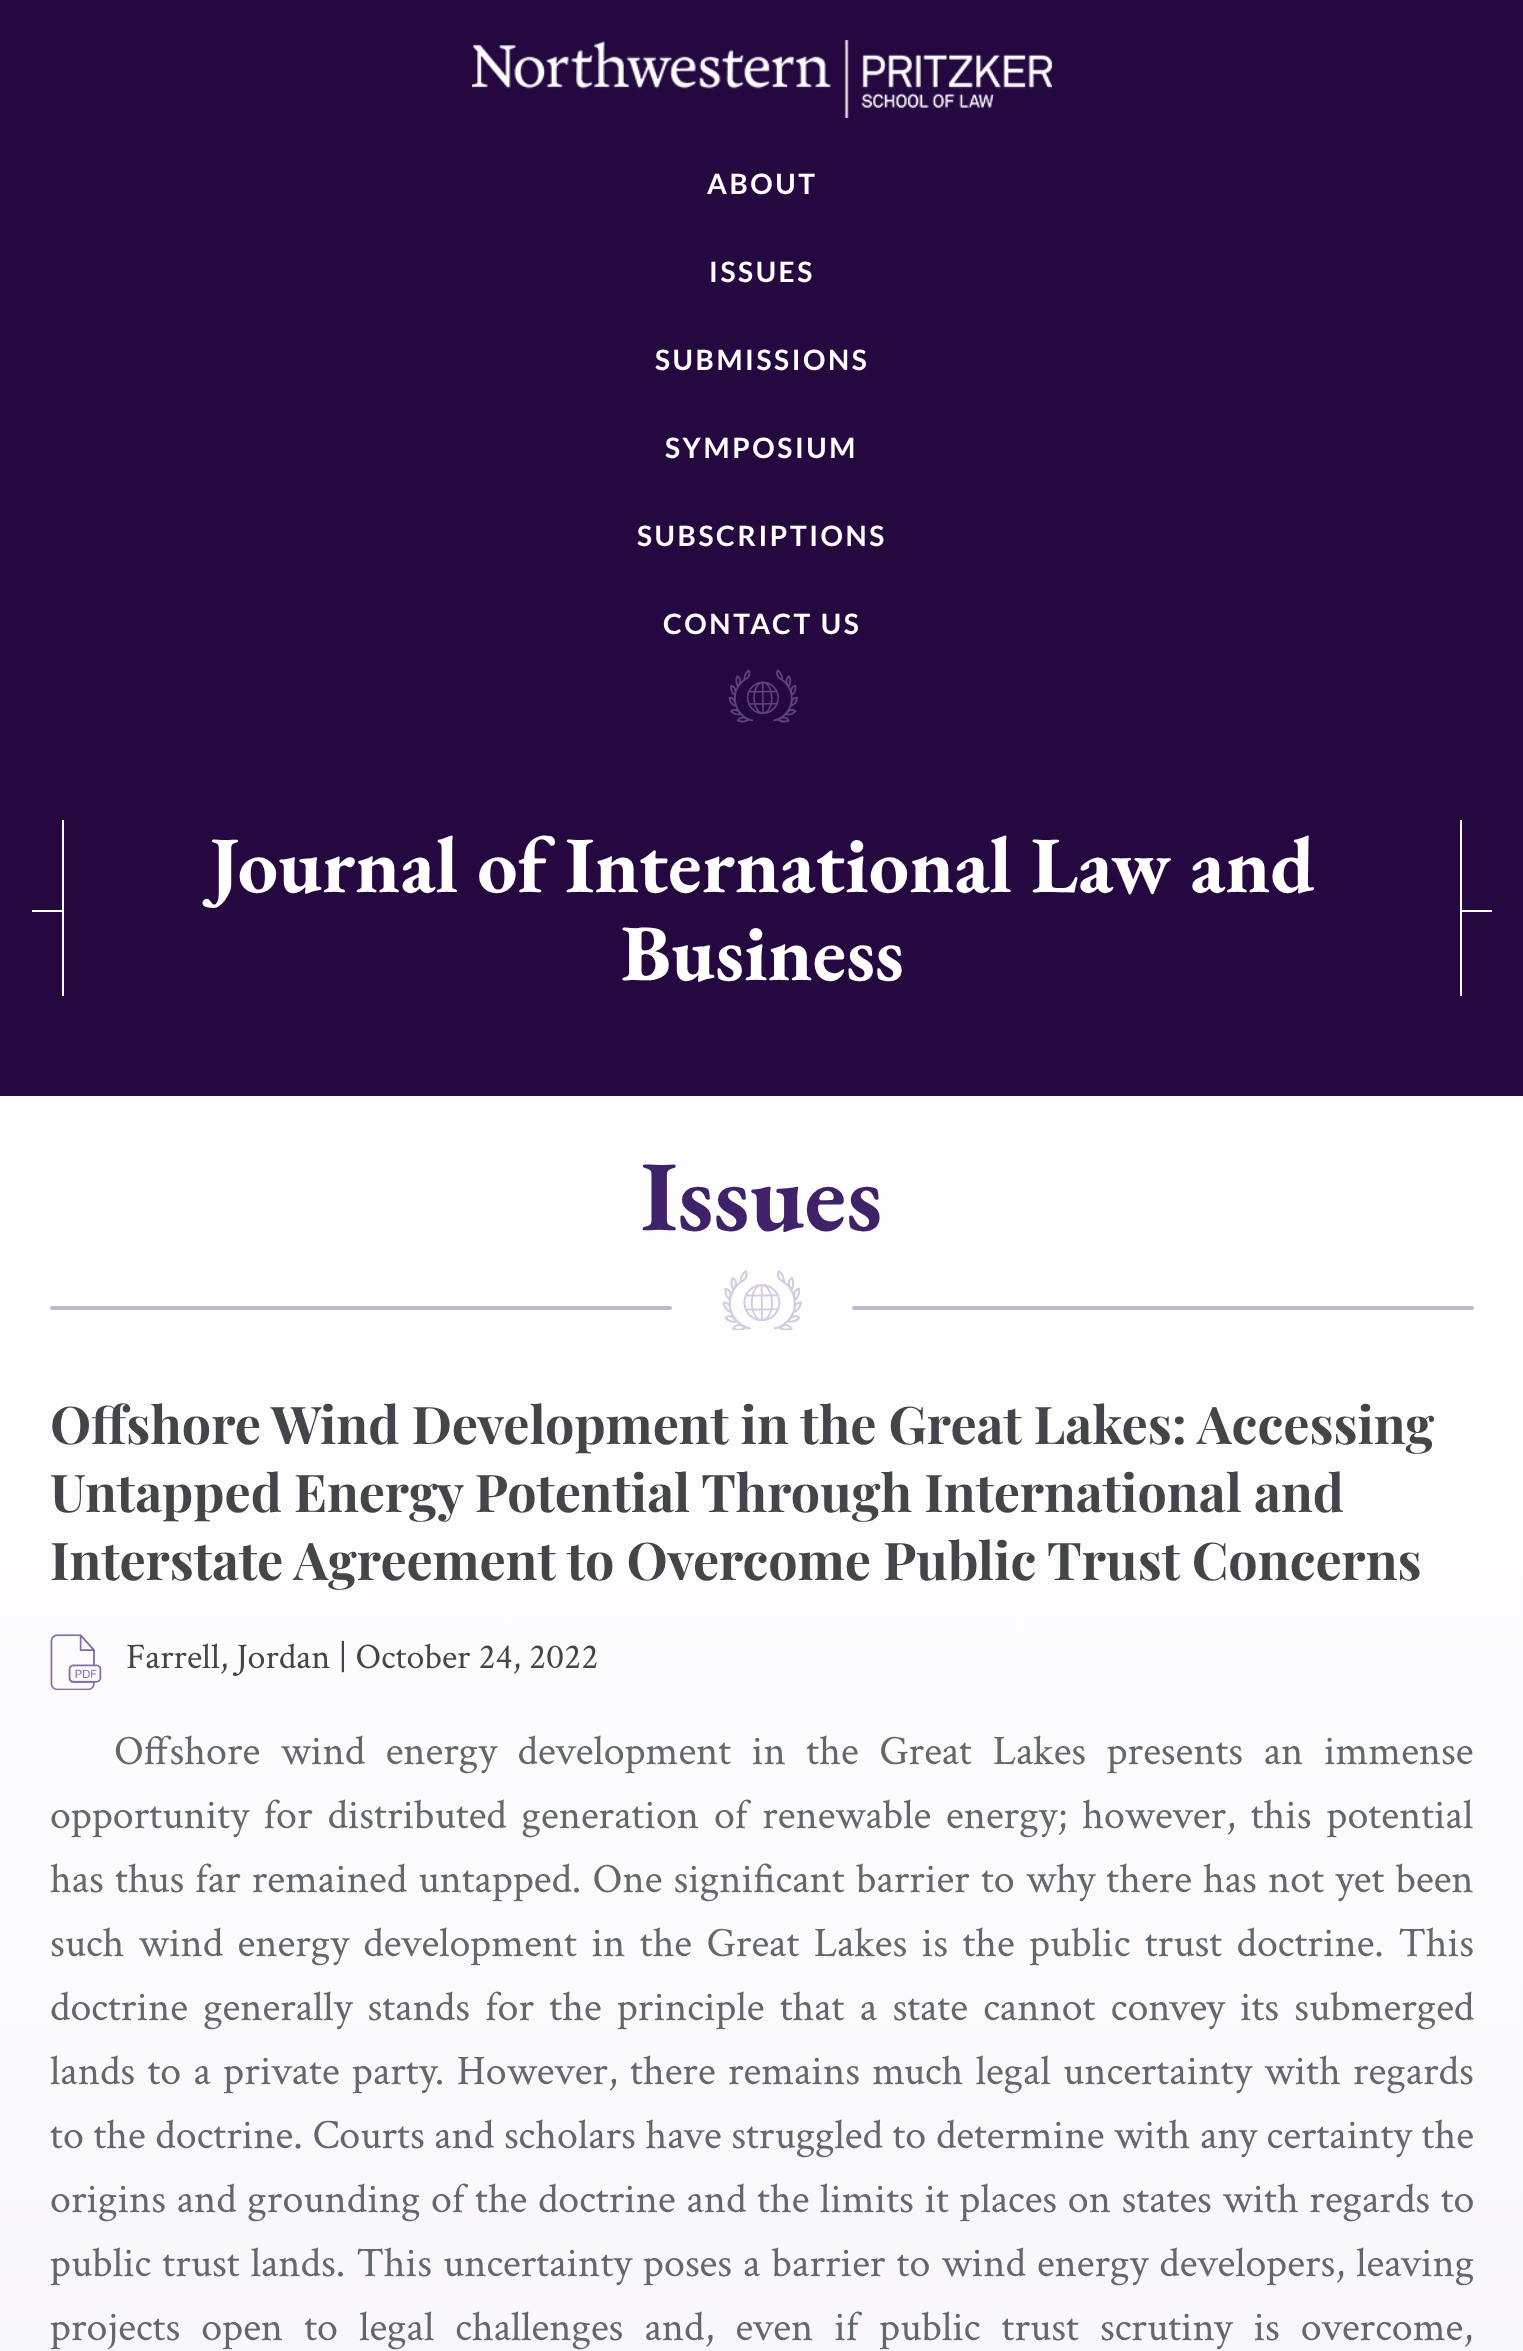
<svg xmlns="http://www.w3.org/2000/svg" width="1523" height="2351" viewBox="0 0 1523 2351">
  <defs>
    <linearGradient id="g1" gradientUnits="userSpaceOnUse" x1="762" y1="1096" x2="762" y2="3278"><stop offset="0" stop-color="#ffffff"/><stop offset="1" stop-color="#f4f1f8"/></linearGradient>
  </defs>
  <rect width="100%" height="100%" fill="#260841"/>
  <image x="472" y="40" width="580" height="78" href="img1.png"/>
  <text x="707" y="194" font-family="Lato" font-size="28" font-weight="bold" letter-spacing="2.6" fill="#ffffff">ABOUT</text>
  <text x="709" y="282" font-family="Lato" font-size="28" font-weight="bold" letter-spacing="2.6" fill="#ffffff">ISSUES</text>
  <text x="655" y="370" font-family="Lato" font-size="28" font-weight="bold" letter-spacing="2.6" fill="#ffffff">SUBMISSIONS</text>
  <text x="665" y="458" font-family="Lato" font-size="28" font-weight="bold" letter-spacing="2.6" fill="#ffffff">SYMPOSIUM</text>
  <text x="637" y="546" font-family="Lato" font-size="28" font-weight="bold" letter-spacing="2.6" fill="#ffffff">SUBSCRIPTIONS</text>
  <text x="663" y="634" font-family="Lato" font-size="28" font-weight="bold" letter-spacing="2.6" fill="#ffffff">CONTACT US</text>
  <image x="728" y="669" width="70" height="54" href="img2.png"/>
  <rect x="32" y="910" width="1460" height="2" fill="#ffffff"/>
  <rect x="64" y="910" width="1396" height="2" fill="#260841"/>
  <rect x="1460" y="820" width="2" height="176" fill="#ffffff"/>
  <rect x="62" y="820" width="2" height="176" fill="#ffffff"/>
  <text x="209" y="892" font-family="EB Garamond" font-size="80" font-weight="bold" fill="#ffffff">Journal of International Law and</text>
  <text x="621" y="980" font-family="EB Garamond" font-size="80" font-weight="bold" fill="#ffffff">Business</text>
  <rect x="0" y="1096" width="1523" height="1255" fill="url(#g1)"/>
  <text x="641" y="1230" font-family="EB Garamond" font-size="100" font-weight="bold" fill="#402268">Issues</text>
  <image x="722" y="1270" width="80" height="60" href="img3.png"/>
  <rect x="50" y="1306" width="622" height="4" rx="2" fill="#c1b6d4"/>
  <rect x="852" y="1306" width="622" height="4" rx="2" fill="#c1b6d4"/>
  <text x="50" y="1444" font-family="Playfair Display" font-size="52" font-weight="bold" fill="#434549">Offshore Wind Development in the Great Lakes: Accessing</text>
  <text x="50" y="1512" font-family="Playfair Display" font-size="52" font-weight="bold" fill="#434549">Untapped Energy Potential Through International and</text>
  <text x="50" y="1580" font-family="Playfair Display" font-size="52" font-weight="bold" fill="#434549">Interstate Agreement to Overcome Public Trust Concerns</text>
  <image x="50" y="1634" width="52" height="56" href="img4.png"/>
  <text x="126" y="1668" font-family="Crimson Text" font-size="36" fill="#434549">Farrell, Jordan | October 24, 2022</text>
  <text x="114" y="1764" word-spacing="11.25" font-family="Crimson Text" font-size="42" fill="#64676b">Offshore wind energy development in the Great Lakes presents an immense</text>
  <text x="50" y="1828" word-spacing="5.5" font-family="Crimson Text" font-size="42" fill="#64676b">opportunity for distributed generation of renewable energy; however, this potential</text>
  <text x="50" y="1892" word-spacing="1.8" font-family="Crimson Text" font-size="42" fill="#64676b">has thus far remained untapped. One significant barrier to why there has not yet been</text>
  <text x="50" y="1956" word-spacing="5.1" font-family="Crimson Text" font-size="42" fill="#64676b">such wind energy development in the Great Lakes is the public trust doctrine. This</text>
  <text x="50" y="2020" word-spacing="5.9" font-family="Crimson Text" font-size="42" fill="#64676b">doctrine generally stands for the principle that a state cannot convey its submerged</text>
  <text x="50" y="2084" word-spacing="3" font-family="Crimson Text" font-size="42" fill="#64676b">lands to a private party. However, there remains much legal uncertainty with regards</text>
  <text x="50" y="2148" word-spacing="0.25" font-family="Crimson Text" font-size="42" fill="#64676b">to the doctrine. Courts and scholars have struggled to determine with any certainty the</text>
  <text x="50" y="2212" word-spacing="1.25" font-family="Crimson Text" font-size="42" fill="#64676b">origins and grounding of the doctrine and the limits it places on states with regards to</text>
  <text x="50" y="2276" word-spacing="1.75" font-family="Crimson Text" font-size="42" fill="#64676b">public trust lands. This uncertainty poses a barrier to wind energy developers, leaving</text>
  <text x="50" y="2340" word-spacing="11.75" font-family="Crimson Text" font-size="42" fill="#64676b">projects open to legal challenges and, even if public trust scrutiny is overcome,</text>
</svg>
